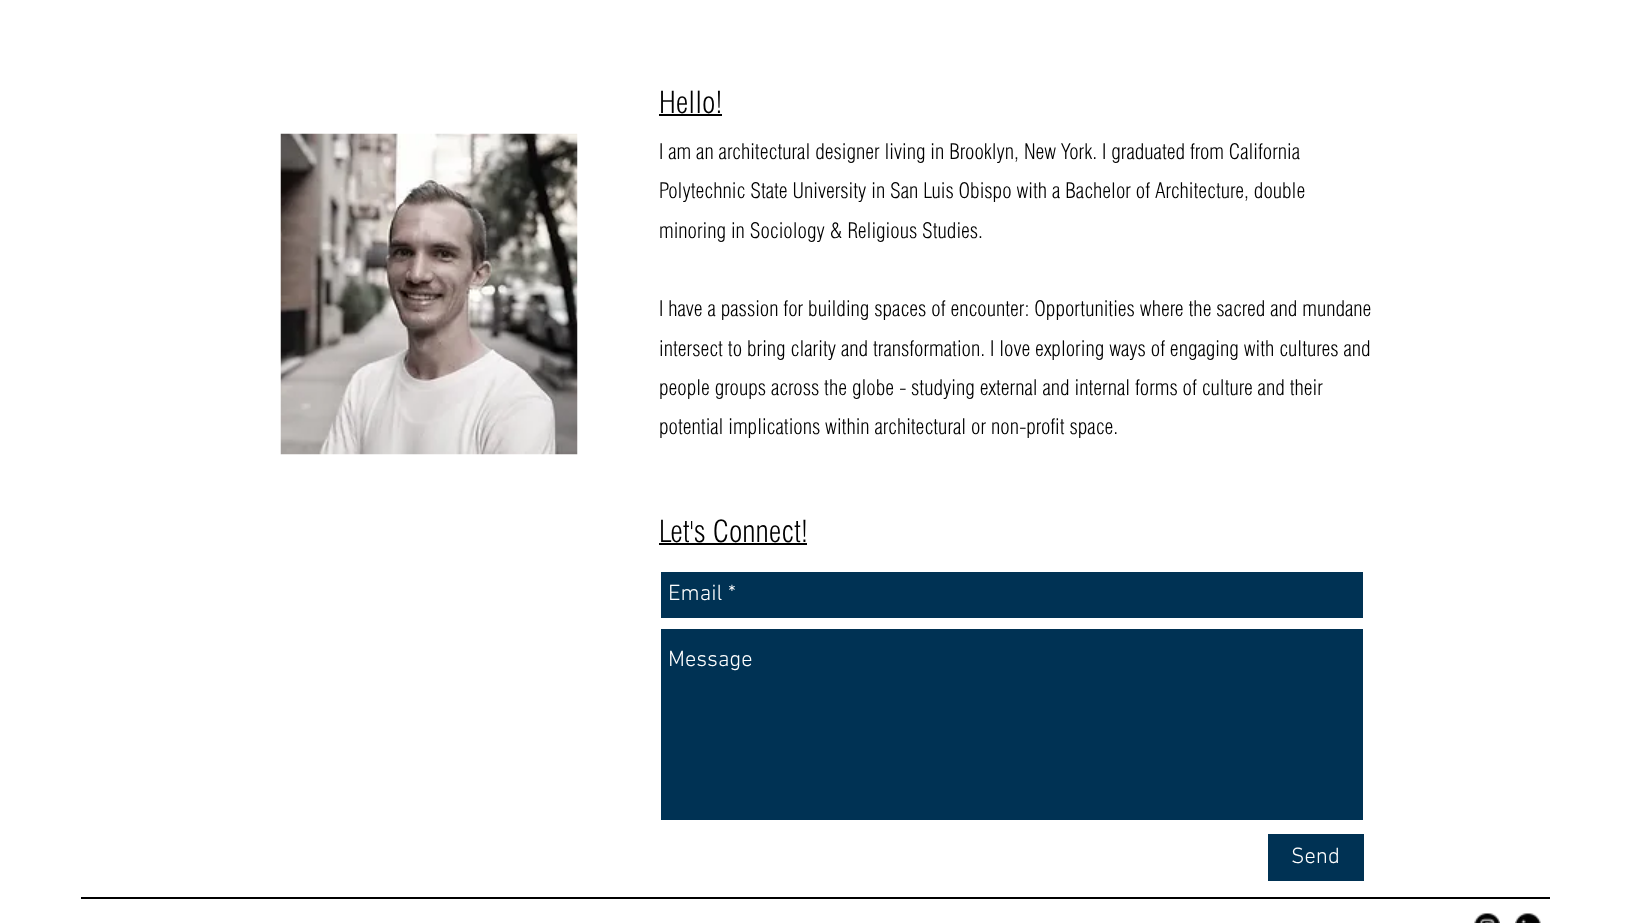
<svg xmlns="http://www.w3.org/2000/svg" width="1629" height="923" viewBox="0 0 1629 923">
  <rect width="100%" height="100%" fill="#ffffff"/>
  <text x="659" y="113" font-family="'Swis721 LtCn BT'" font-size="30" font-weight="300" fill="#000000">Hello!</text>
  <rect x="659" y="114" width="63" height="2" fill="#000000"/>
  <image x="280" y="133" width="298" height="322" href="img1.png"/>
  <text x="659" y="159" font-family="'Swis721 LtCn BT'" font-size="21" font-weight="300" fill="#000000">I am an architectural designer living in Brooklyn, New York. I graduated from California</text>
  <text x="659" y="198" font-family="'Swis721 LtCn BT'" font-size="21" font-weight="300" fill="#000000">Polytechnic State University in San Luis Obispo with a Bachelor of Architecture, double</text>
  <text x="659" y="238" font-family="'Swis721 LtCn BT'" font-size="21" font-weight="300" fill="#000000">minoring in Sociology &amp; Religious Studies.</text>
  <text x="659" y="316" font-family="'Swis721 LtCn BT'" font-size="21" font-weight="300" fill="#000000">I have a passion for building spaces of encounter: Opportunities where the sacred and mundane</text>
  <text x="659" y="356" font-family="'Swis721 LtCn BT'" font-size="21" font-weight="300" fill="#000000">intersect to bring clarity and transformation. I love exploring ways of engaging with cultures and</text>
  <text x="659" y="395" font-family="'Swis721 LtCn BT'" font-size="21" font-weight="300" fill="#000000">people groups across the globe - studying external and internal forms of culture and their</text>
  <text x="659" y="434" font-family="'Swis721 LtCn BT'" font-size="21" font-weight="300" fill="#000000">potential implications within architectural or non-profit space.</text>
  <text x="659" y="542" font-family="'Swis721 LtCn BT'" font-size="30" font-weight="300" fill="#000000">Let's Connect!</text>
  <rect x="659" y="543" width="148" height="2" fill="#000000"/>
  <rect x="661" y="572" width="702" height="46" fill="#003254"/>
  <text x="668" y="600" font-family="'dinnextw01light'" font-size="22.5" font-weight="300" fill="#ffffff">Email *</text>
  <rect x="661" y="629" width="702" height="191" fill="#003254"/>
  <text x="668" y="666" font-family="'dinnextw01light'" font-size="22.5" font-weight="300" fill="#ffffff">Message</text>
  <rect x="1268" y="834" width="96" height="47" fill="#003254"/>
  <text x="1291" y="863" font-family="'dinnextw01light'" font-size="22.5" font-weight="300" fill="#ffffff">Send</text>
  <rect x="81" y="897" width="1469" height="2" fill="#000000"/>
  <image x="1474" y="913" width="26" height="10" href="img2.png"/>
  <image x="1515" y="913" width="26" height="10" href="img3.png"/>
</svg>
